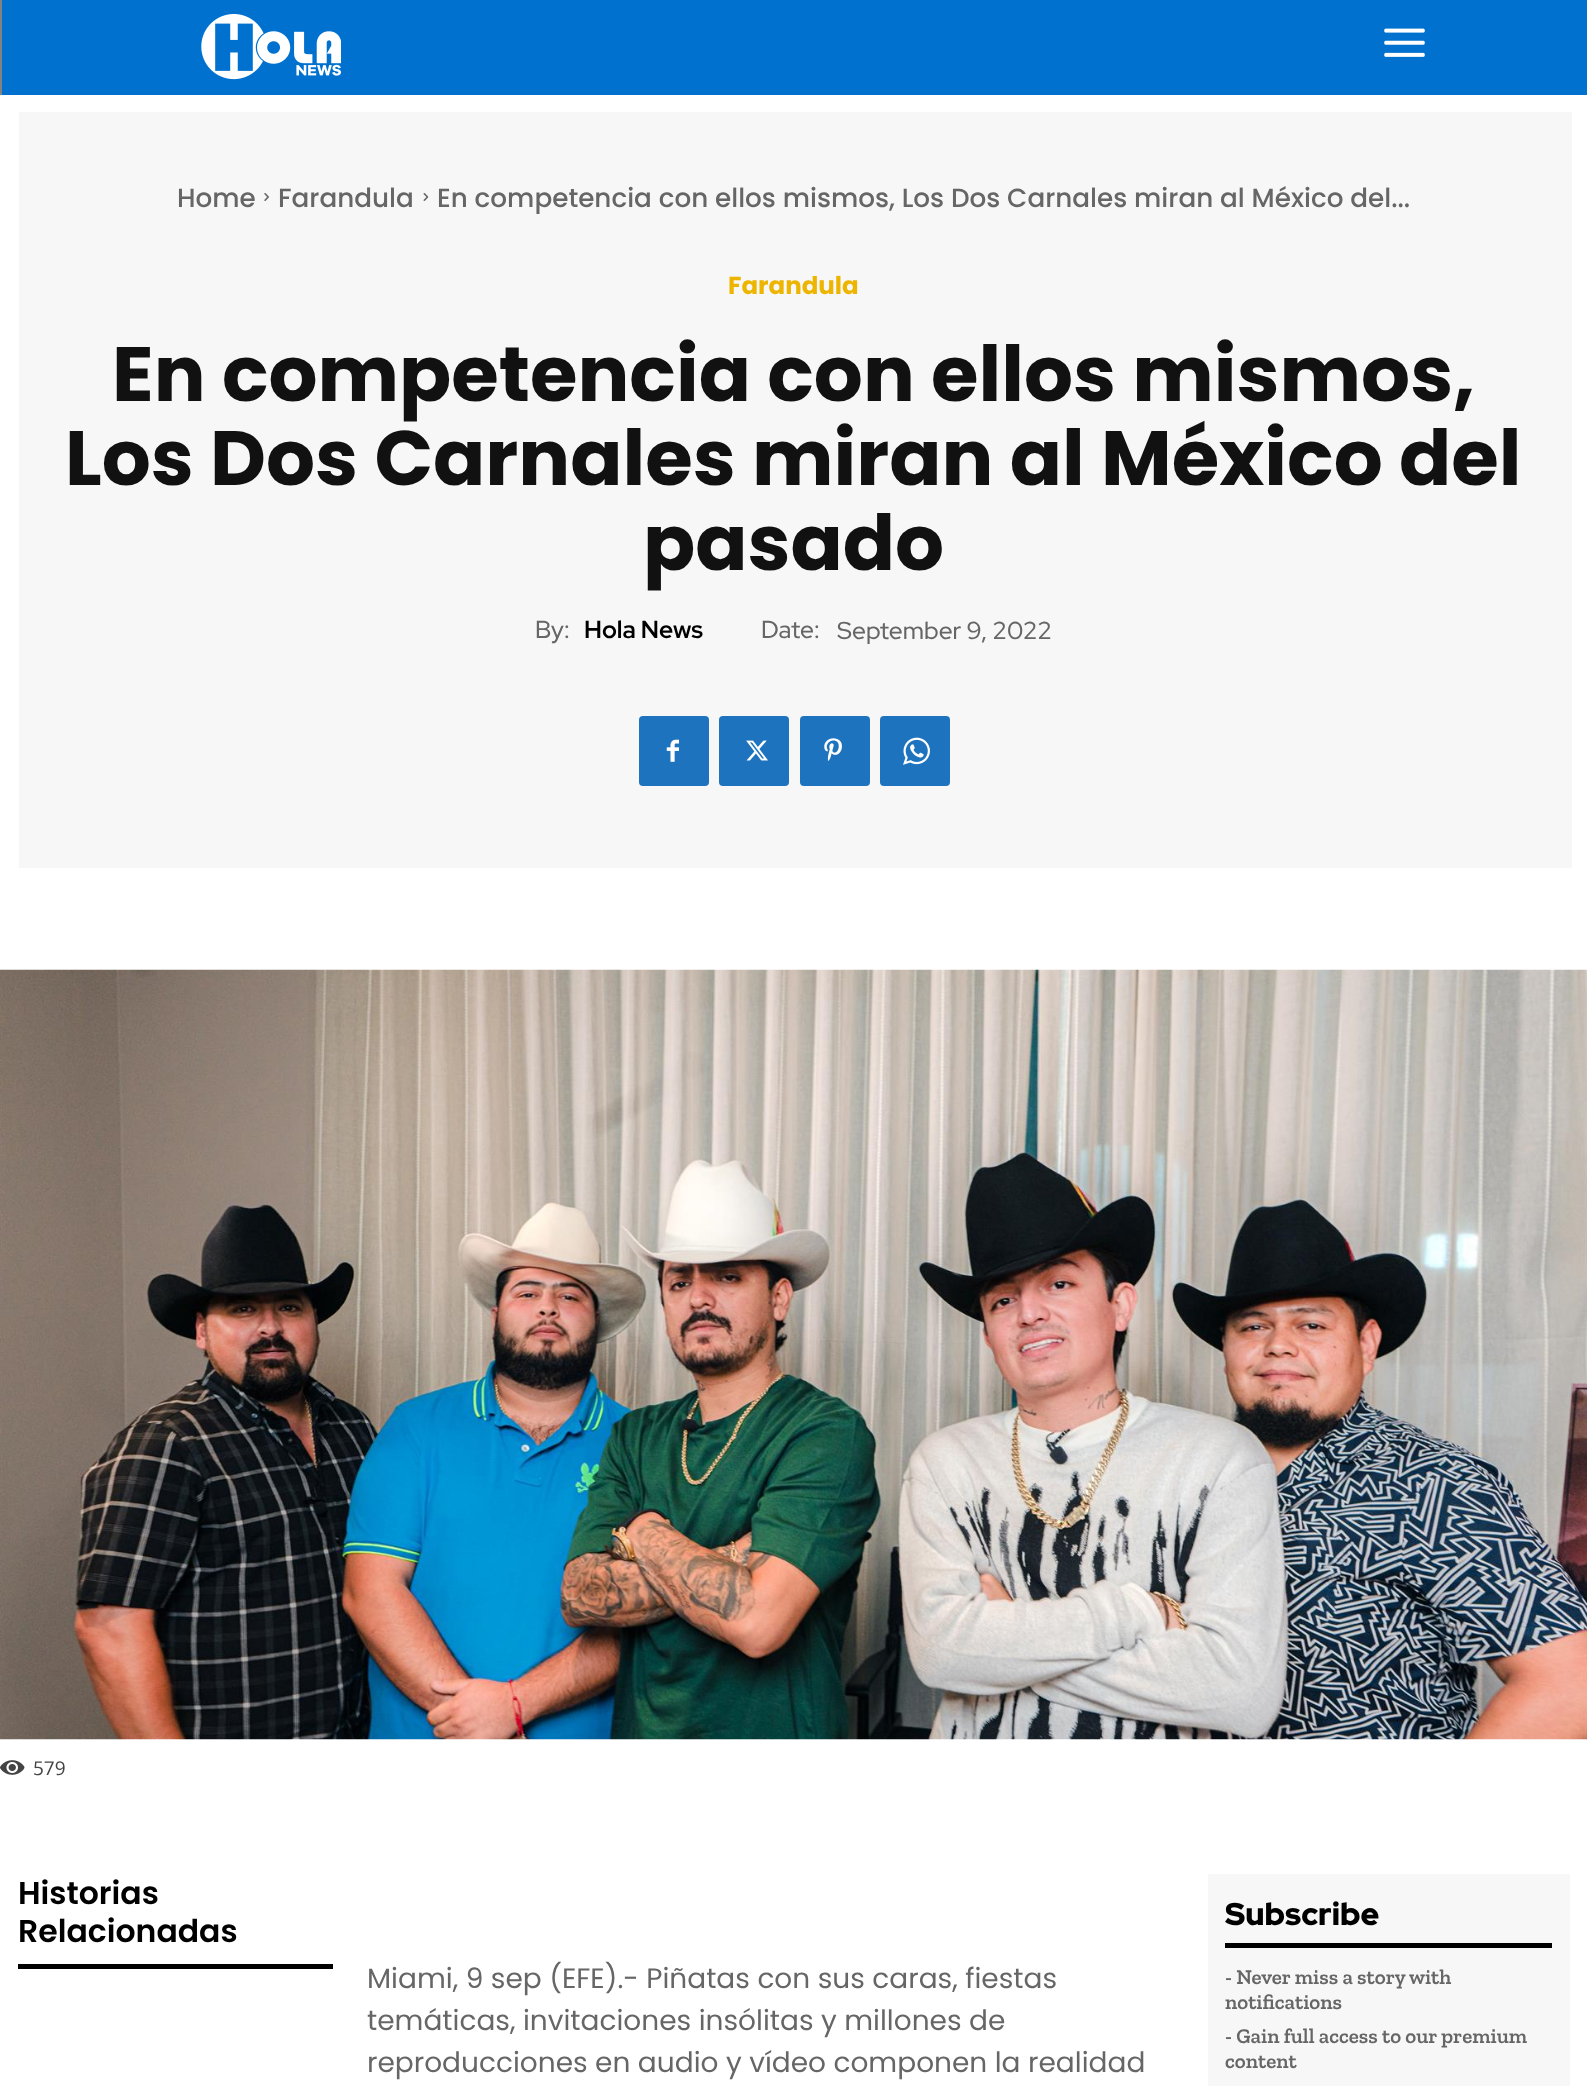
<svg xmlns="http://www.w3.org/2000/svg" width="1587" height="2086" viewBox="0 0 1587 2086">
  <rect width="100%" height="100%" fill="#ffffff"/>
  <rect x="0" y="0" width="2" height="95" fill="#828282"/>
  <rect x="2" y="0" width="1585" height="95" fill="#0071ce"/>
  <image x="201" y="14" width="140" height="66" href="img1.png"/>
  <image x="1384" y="28" width="41" height="29" href="img2.png"/>
  <rect x="19" y="112" width="1553" height="756" fill="#f7f7f7"/>
  <text x="177" y="207" font-family="Poppins" font-size="26.25" font-weight="500" fill="#666666">Home</text>
  <image x="264" y="193" width="5" height="8" href="img3.png"/>
  <text x="278" y="207" font-family="Poppins" font-size="26.25" font-weight="500" fill="#666666">Farandula</text>
  <image x="423" y="193" width="6" height="8" href="img4.png"/>
  <text x="437" y="207" font-family="Poppins" font-size="26.25" font-weight="500" fill="#666666">En competencia con ellos mismos, Los Dos Carnales miran al México del...</text>
  <text x="728" y="294" font-family="Poppins" font-size="24.5" font-weight="bold" fill="#edb500">Farandula</text>
  <text x="112" y="401" font-family="Poppins" font-size="77" font-weight="bold" fill="#111111">En competencia con ellos mismos,</text>
  <text x="65" y="485" font-family="Poppins" font-size="77" font-weight="bold" fill="#111111">Los Dos Carnales miran al México del</text>
  <text x="643" y="570" font-family="Poppins" font-size="77" font-weight="bold" fill="#111111">pasado</text>
  <text x="535" y="638" font-family="Red Hat Display" font-size="24.5" font-weight="500" fill="#666666">By:</text>
  <text x="584" y="638" font-family="Red Hat Display" font-size="24.5" font-weight="bold" fill="#000000">Hola News</text>
  <text x="761" y="638" font-family="Red Hat Display" font-size="24.5" font-weight="500" fill="#666666">Date:</text>
  <text x="837" y="639" font-family="Red Hat Display" font-size="24.5" font-weight="500" fill="#666666">September 9, 2022</text>
  <rect x="639" y="716" width="70" height="70" rx="4" fill="#1e73be"/>
  <image x="666" y="739" width="13" height="23" href="img5.png"/>
  <rect x="719" y="716" width="70" height="70" rx="4" fill="#1e73be"/>
  <image x="746" y="740" width="22" height="21" href="img6.png"/>
  <rect x="800" y="716" width="70" height="70" rx="4" fill="#1e73be"/>
  <image x="824" y="738" width="18" height="23" href="img7.png"/>
  <rect x="880" y="716" width="70" height="70" rx="4" fill="#1e73be"/>
  <image x="903" y="737" width="27" height="28" href="img8.png"/>
  <image x="0" y="969" width="1587" height="771" href="img9.png"/>
  <image x="0" y="1760" width="25" height="15" href="img10.png"/>
  <text x="33" y="1775" font-family="Open Sans" font-size="19" fill="#444444">579</text>
  <rect x="18" y="1964" width="315" height="5" fill="#000000"/>
  <text x="18" y="1904" font-family="Poppins" font-size="31.5" font-weight="600" fill="#000000">Historias</text>
  <text x="18" y="1942" font-family="Poppins" font-size="31.5" font-weight="600" fill="#000000">Relacionadas</text>
  <text x="367" y="1988" font-family="Poppins" font-size="28" fill="#666666">Miami, 9 sep (EFE).- Piñatas con sus caras, fiestas</text>
  <text x="367" y="2030" font-family="Poppins" font-size="28" fill="#666666">temáticas, invitaciones insólitas y millones de</text>
  <text x="367" y="2072" font-family="Poppins" font-size="28" fill="#666666">reproducciones en audio y vídeo componen la realidad</text>
  <rect x="1208" y="1874" width="362" height="212" fill="#f7f7f7"/>
  <rect x="1225" y="1943" width="327" height="5" fill="#000000"/>
  <text x="1225" y="1925" font-family="Red Hat Display" font-size="31.5" font-weight="900" fill="#000000">Subscribe</text>
  <text x="1225" y="1984" font-family="Zilla Slab" font-size="21" font-weight="600" fill="#666666">- Never miss a story with</text>
  <text x="1225" y="2009" font-family="Zilla Slab" font-size="21" font-weight="600" fill="#666666">notifications</text>
  <text x="1225" y="2043" font-family="Zilla Slab" font-size="21" font-weight="600" fill="#666666">- Gain full access to our premium</text>
  <text x="1225" y="2068" font-family="Zilla Slab" font-size="21" font-weight="600" fill="#666666">content</text>
</svg>
